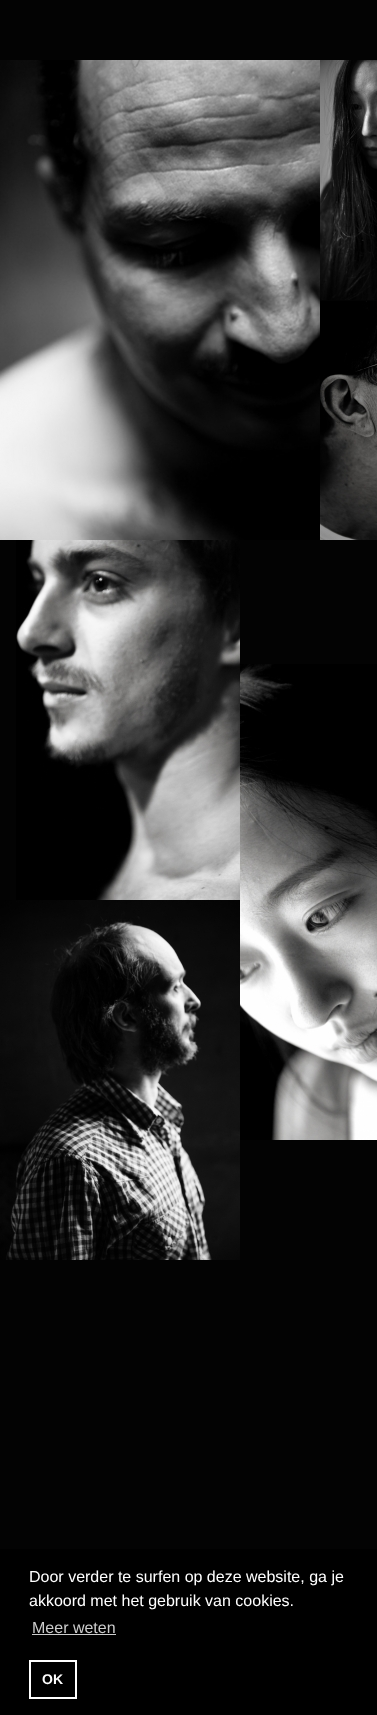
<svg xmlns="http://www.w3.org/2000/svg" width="377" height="1715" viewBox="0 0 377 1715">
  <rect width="100%" height="100%" fill="#030303"/>
  <image x="0" y="60" width="320" height="480" href="img1.png"/>
  <image x="320" y="60" width="57" height="240" href="img2.png"/>
  <image x="320" y="301" width="57" height="239" href="img3.png"/>
  <image x="16" y="540" width="224" height="360" href="img4.png"/>
  <image x="240" y="664" width="137" height="476" href="img5.png"/>
  <image x="0" y="900" width="240" height="360" href="img6.png"/>
  <rect x="0" y="1549" width="377" height="166" fill="#000000"/>
  <text x="29" y="1582" font-family="Liberation Sans" font-size="16" fill="#ffffff">Door verder te surfen op deze website, ga je</text>
  <text x="29" y="1606" font-family="Liberation Sans" font-size="16" fill="#ffffff">akkoord met het gebruik van cookies.</text>
  <text x="32" y="1633" font-family="Liberation Sans" font-size="16" fill="#cccccc">Meer weten</text>
  <rect x="32" y="1634" width="84" height="1" fill="#cccccc"/>
  <rect x="30" y="1661" width="46" height="37" fill="none" stroke="#ffffff" stroke-width="2"/>
  <text x="42" y="1684" font-family="Liberation Sans" font-size="14" font-weight="bold" fill="#ffffff">OK</text>
</svg>
